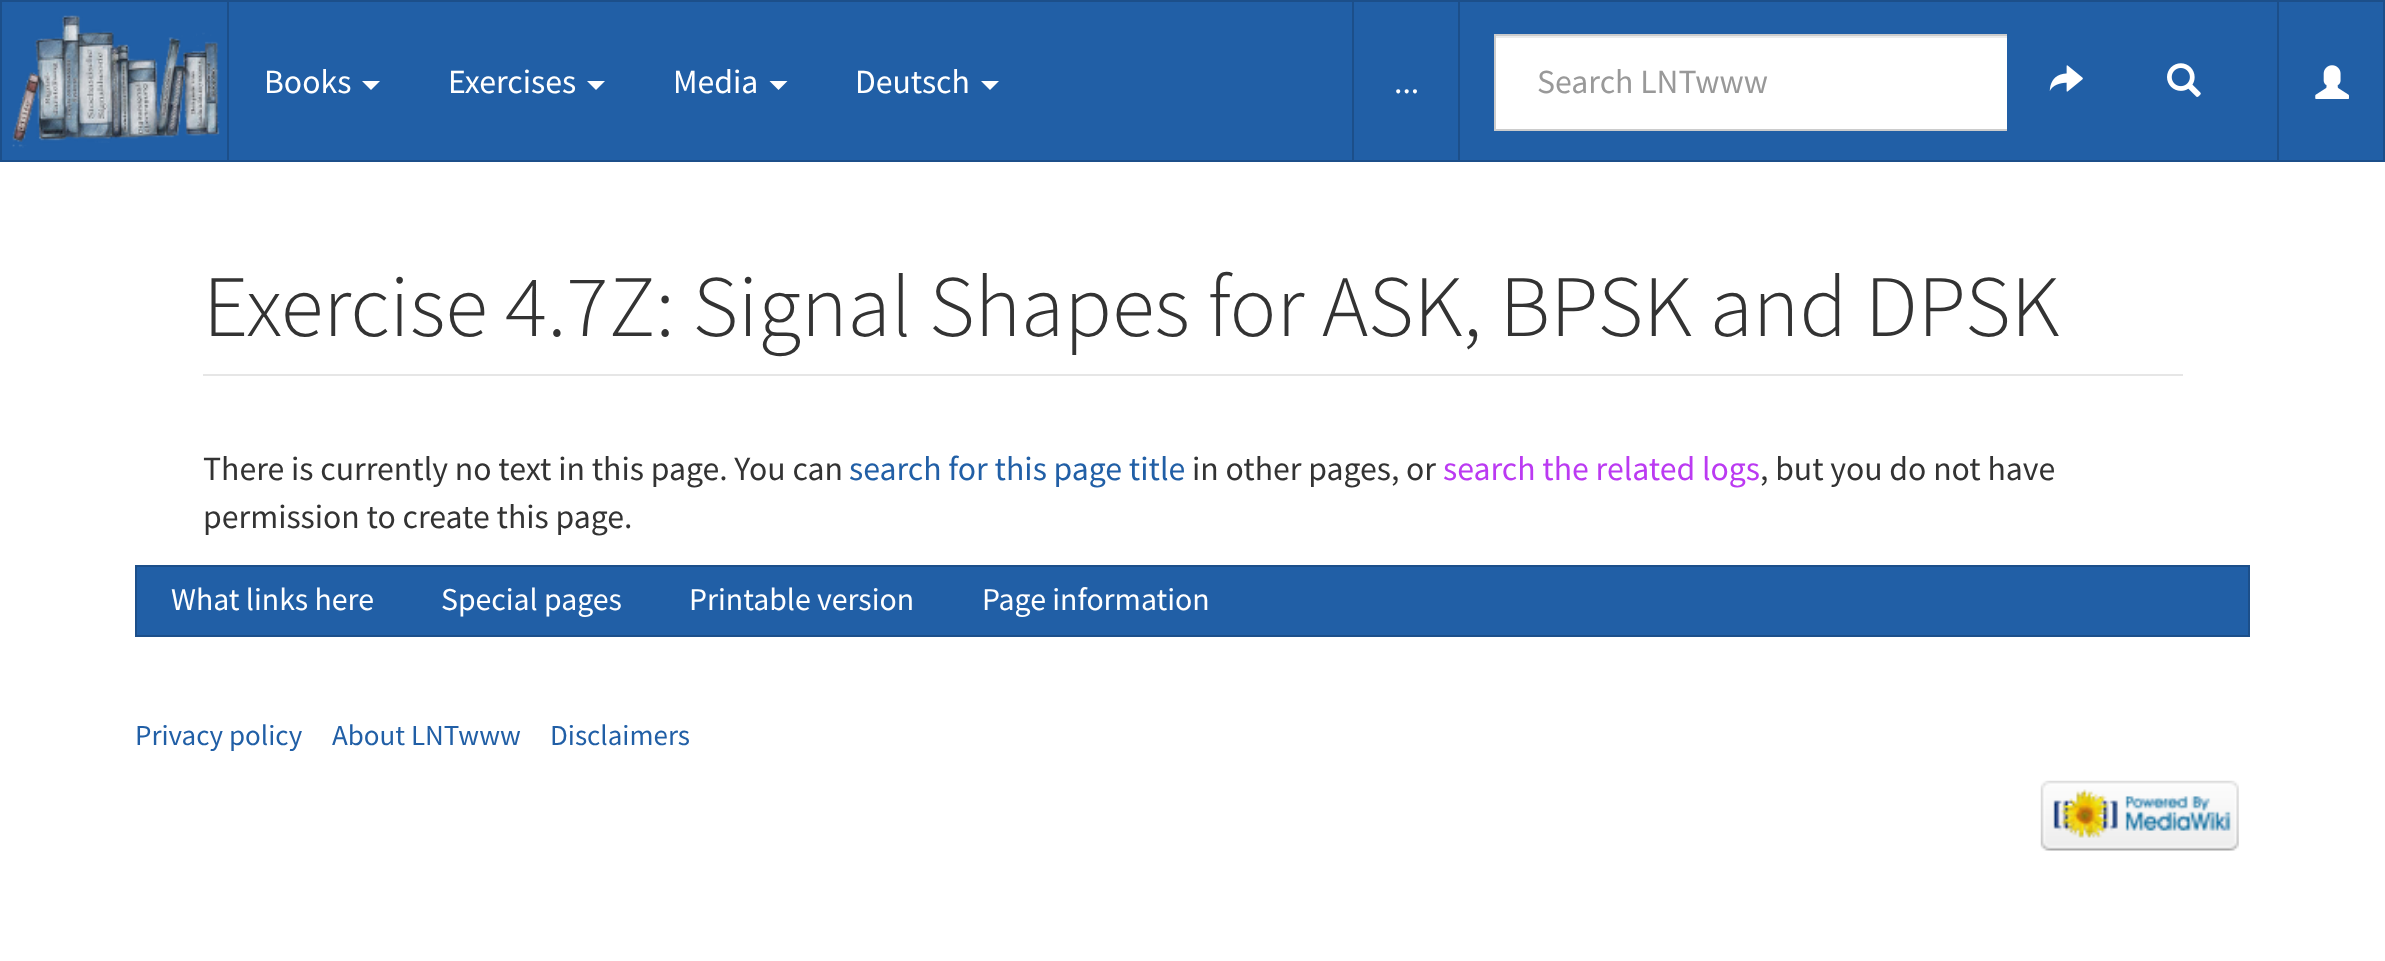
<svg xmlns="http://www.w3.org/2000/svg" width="2385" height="961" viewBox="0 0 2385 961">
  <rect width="100%" height="100%" fill="#ffffff"/>
  <rect x="1" y="1" width="2383" height="160" fill="#215fa6" stroke="#1c4f8a" stroke-width="2"/>
  <rect x="227" y="2" width="2" height="158" fill="#1c4f8a"/>
  <image x="12" y="15" width="208" height="133" href="img1.png"/>
  <text x="264" y="93" font-family="Source Sans Pro" font-size="33.75" fill="#ffffff">Books</text>
  <path d="M362 81H380L371 90Z" fill="#ffffff"/>
  <text x="448" y="93" font-family="Source Sans Pro" font-size="33.75" fill="#ffffff">Exercises</text>
  <path d="M587 81H605L596 90Z" fill="#ffffff"/>
  <text x="673" y="93" font-family="Source Sans Pro" font-size="33.75" fill="#ffffff">Media</text>
  <path d="M769.5 81H787.5L778.5 90Z" fill="#ffffff"/>
  <text x="855" y="93" font-family="Source Sans Pro" font-size="33.75" fill="#ffffff">Deutsch</text>
  <path d="M981 81H999L990 90Z" fill="#ffffff"/>
  <rect x="1458" y="2" width="2" height="158" fill="#1c4f8a"/>
  <rect x="1352" y="2" width="2" height="158" fill="#1c4f8a"/>
  <text x="1394" y="93" font-family="Source Sans Pro" font-size="33.75" fill="#ffffff">...</text>
  <rect x="2277" y="2" width="2" height="158" fill="#1c4f8a"/>
  <rect x="1496" y="38" width="511" height="91" fill="#ffffff"/>
  <rect x="1496" y="36" width="511" height="2" fill="#ececec"/>
  <rect x="1495" y="35" width="513" height="95" fill="none" stroke="#cccccc" stroke-width="2"/>
  <text x="1537" y="93" font-family="Source Sans Pro" font-size="33.75" fill="#999999">Search LNTwww</text>
  <rect x="2007" y="34" width="2" height="97" fill="#215fa6"/>
  <image x="2049" y="65" width="34" height="27" href="img2.png"/>
  <image x="2167" y="63" width="34" height="34" href="img3.png"/>
  <image x="2315" y="65" width="34" height="34" href="img4.png"/>
  <rect x="203" y="374" width="1980" height="2" fill="#e6e6e6"/>
  <text x="203" y="336" font-family="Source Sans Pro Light" font-size="87.75" font-weight="300" fill="#333333">Exercise 4.7Z: Signal Shapes for ASK, BPSK and DPSK</text>
  <text x="203" y="480" font-family="Source Sans Pro" font-size="33.75" fill="#333333">There is currently no text in this page. You can</text>
  <text x="849" y="480" font-family="Source Sans Pro" font-size="33.75" fill="#215fa6">search for this page title</text>
  <text x="1192" y="480" font-family="Source Sans Pro" font-size="33.75" fill="#333333">in other pages, or</text>
  <text x="1443" y="480" font-family="Source Sans Pro" font-size="33.75" fill="#bb3af2">search the related logs</text>
  <text x="1760" y="480" font-family="Source Sans Pro" font-size="33.75" fill="#333333">, but you do not have</text>
  <text x="203" y="528" font-family="Source Sans Pro" font-size="33.75" fill="#333333">permission to create this page.</text>
  <rect x="136" y="566" width="2113" height="70" fill="#215fa6" stroke="#1c4f8a" stroke-width="2"/>
  <text x="171" y="610" font-family="Source Sans Pro" font-size="31.75" fill="#ffffff">What links here</text>
  <text x="441" y="610" font-family="Source Sans Pro" font-size="31.75" fill="#ffffff">Special pages</text>
  <text x="689" y="610" font-family="Source Sans Pro" font-size="31.75" fill="#ffffff">Printable version</text>
  <text x="982" y="610" font-family="Source Sans Pro" font-size="31.75" fill="#ffffff">Page information</text>
  <text x="135" y="745" font-family="Source Sans Pro" font-size="29" fill="#215fa6">Privacy policy</text>
  <text x="332" y="745" font-family="Source Sans Pro" font-size="29" fill="#215fa6">About LNTwww</text>
  <text x="550" y="745" font-family="Source Sans Pro" font-size="29" fill="#215fa6">Disclaimers</text>
  <image x="2040" y="780" width="199" height="71" href="img5.png"/>
</svg>
